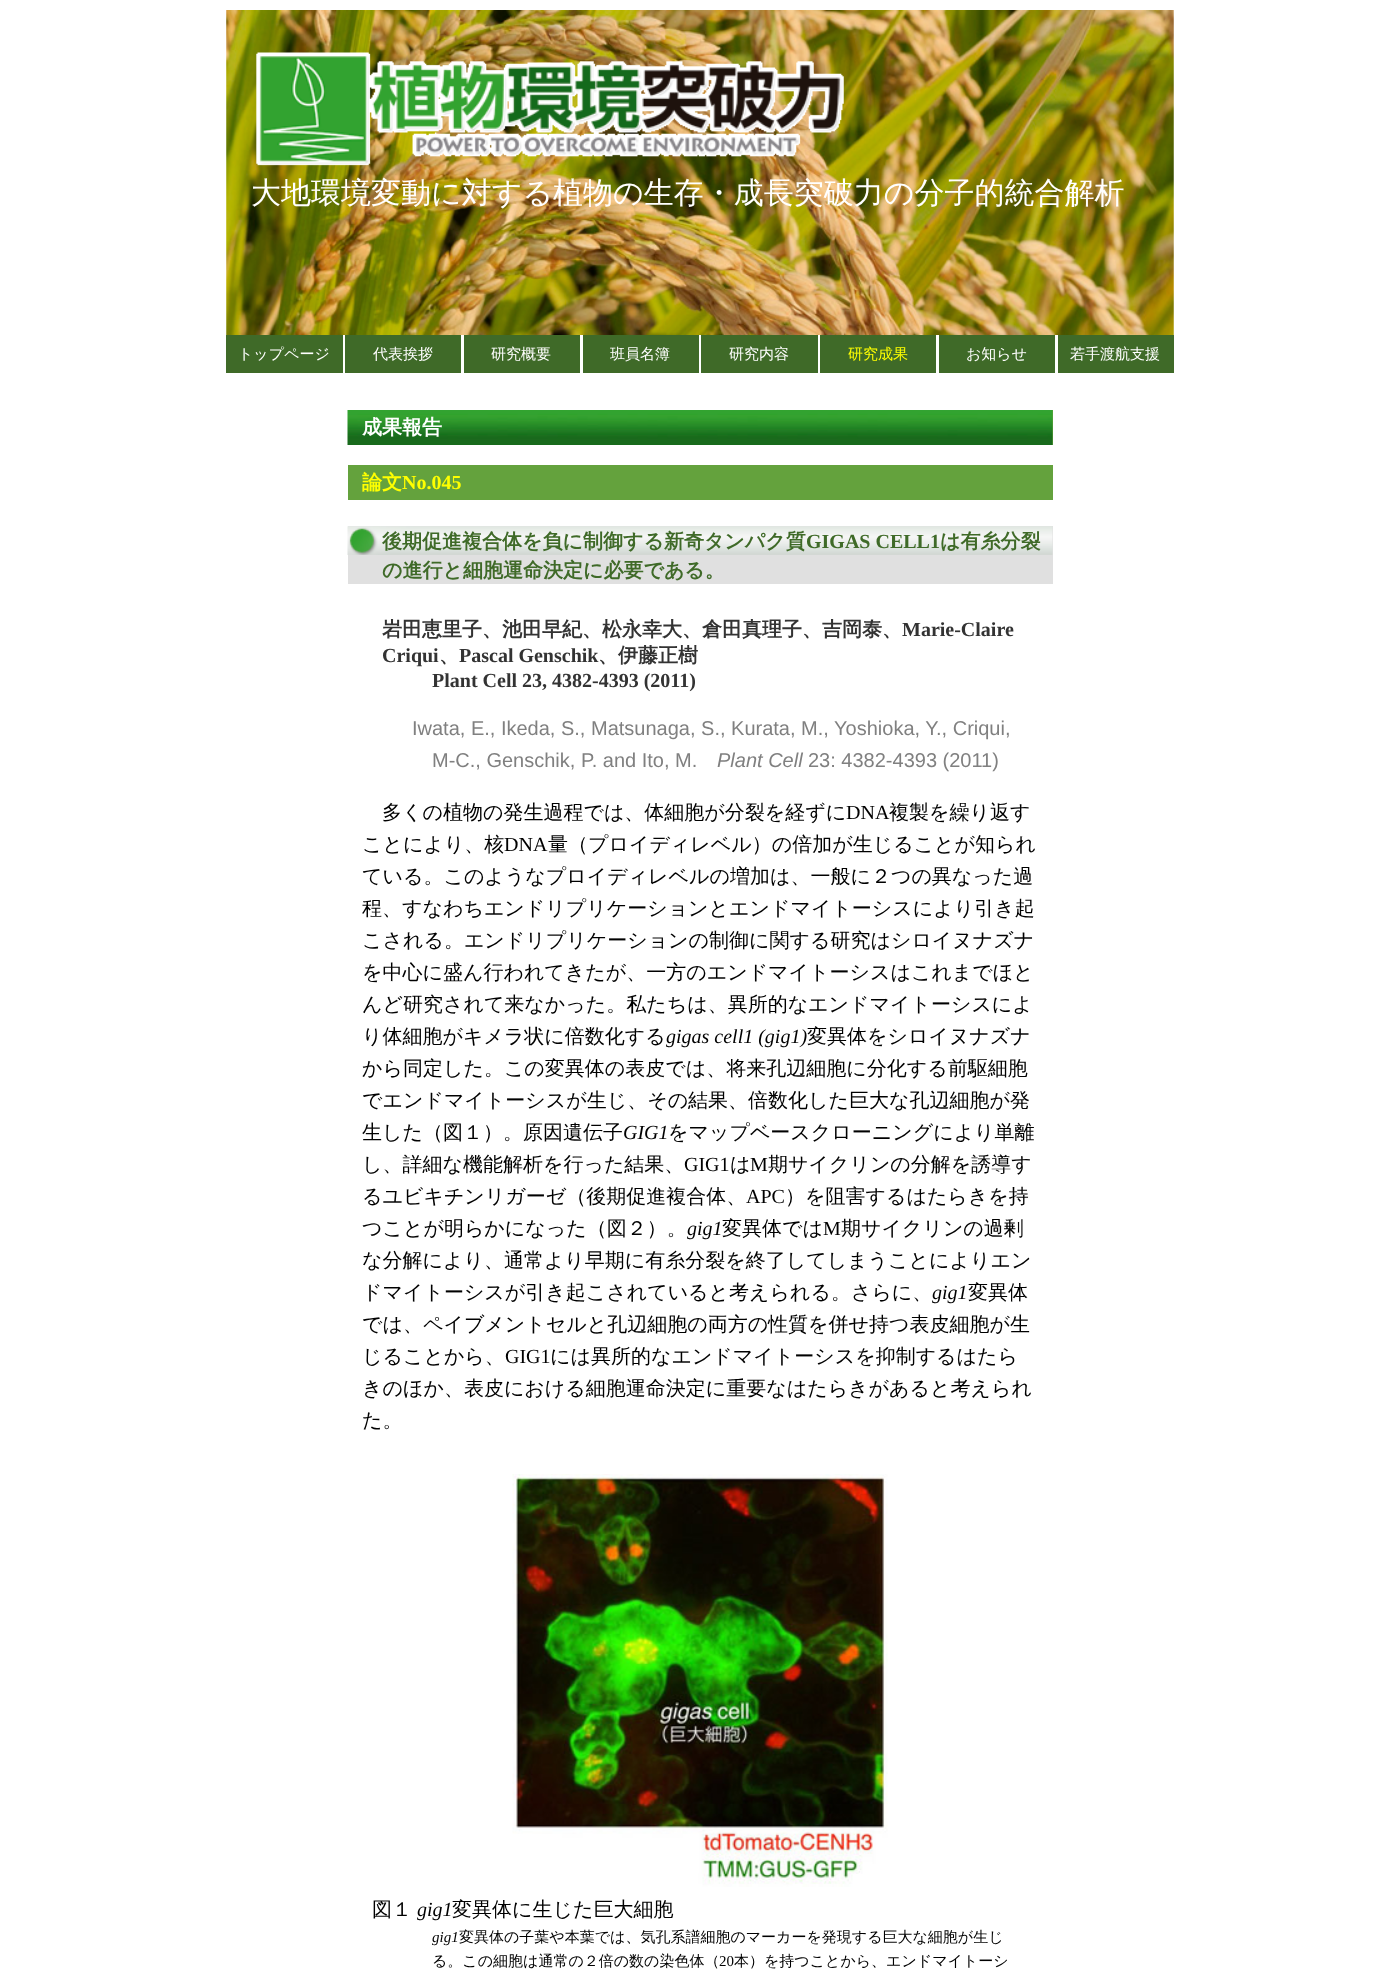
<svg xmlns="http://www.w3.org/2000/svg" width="1398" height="1983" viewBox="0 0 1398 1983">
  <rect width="100%" height="100%" fill="#ffffff"/>
  <image x="226" y="10" width="948" height="325" href="img1.png"/>
  <image x="256" y="52" width="588" height="114" href="img2.png"/>
  <text x="251" y="203" font-family="WenQuanYi Zen Hei" font-size="30" font-weight="500" fill="#ffffff">大地環境変動に対する植物の生存・成長突破力の分子的統合解析</text>
  <rect x="226" y="335" width="948" height="38" fill="#3f6a28"/>
  <rect x="343" y="335" width="2" height="38" fill="#ffffff"/>
  <text x="238" y="359" font-family="WenQuanYi Zen Hei" font-size="15" font-weight="500" fill="#ffffff">トップページ</text>
  <rect x="461" y="335" width="3" height="38" fill="#ffffff"/>
  <text x="373" y="359" font-family="WenQuanYi Zen Hei" font-size="15" font-weight="500" fill="#ffffff">代表挨拶</text>
  <rect x="580" y="335" width="3" height="38" fill="#ffffff"/>
  <text x="491" y="359" font-family="WenQuanYi Zen Hei" font-size="15" font-weight="500" fill="#ffffff">研究概要</text>
  <rect x="699" y="335" width="2" height="38" fill="#ffffff"/>
  <text x="610" y="359" font-family="WenQuanYi Zen Hei" font-size="15" font-weight="500" fill="#ffffff">班員名簿</text>
  <rect x="818" y="335" width="2" height="38" fill="#ffffff"/>
  <text x="729" y="359" font-family="WenQuanYi Zen Hei" font-size="15" font-weight="500" fill="#ffffff">研究内容</text>
  <rect x="936" y="335" width="3" height="38" fill="#ffffff"/>
  <text x="848" y="359" font-family="WenQuanYi Zen Hei" font-size="15" font-weight="500" fill="#ffff00">研究成果</text>
  <rect x="1055" y="335" width="3" height="38" fill="#ffffff"/>
  <text x="966" y="359" font-family="WenQuanYi Zen Hei" font-size="15" font-weight="500" fill="#ffffff">お知らせ</text>
  <text x="1070" y="359" font-family="WenQuanYi Zen Hei" font-size="15" font-weight="500" fill="#ffffff">若手渡航支援</text>
  <rect x="1052" y="410" width="1" height="35" fill="#64a23d"/>
  <image x="347" y="410" width="706" height="35" href="img3.png"/>
  <text x="362" y="434" font-family="WenQuanYi Zen Hei" font-size="20" font-weight="bold" fill="#ffffff">成果報告</text>
  <rect x="348" y="465" width="705" height="35" fill="#64a23d"/>
  <text x="362" y="489" font-family="WenQuanYi Zen Hei" font-size="20" font-weight="bold" fill="#ffff00">論文</text>
  <text x="402" y="489" font-family="Liberation Serif" font-size="20" font-weight="bold" fill="#ffff00">No.045</text>
  <rect x="348" y="526" width="705" height="58" fill="#e0e0e0"/>
  <image x="347" y="526" width="706" height="29" href="img4.png"/>
  <text x="382" y="548" font-family="WenQuanYi Zen Hei" font-size="20" font-weight="bold" fill="#3f6a28">後期促進複合体を負に制御する新奇タンパク質</text>
  <text x="806" y="548" font-family="Liberation Serif" font-size="20" font-weight="bold" fill="#3f6a28">GIGAS CELL1</text>
  <text x="940" y="548" font-family="WenQuanYi Zen Hei" font-size="20" font-weight="bold" fill="#3f6a28">は有糸分裂</text>
  <text x="382" y="577" font-family="WenQuanYi Zen Hei" font-size="20" font-weight="bold" fill="#3f6a28">の進行と細胞運命決定に必要である。</text>
  <text x="382" y="636" font-family="WenQuanYi Zen Hei" font-size="20" font-weight="bold" fill="#333333">岩田恵里子、池田早紀、松永幸大、倉田真理子、吉岡泰、</text>
  <text x="902" y="636" font-family="Liberation Serif" font-size="20" font-weight="bold" fill="#333333">Marie-Claire</text>
  <text x="382" y="662" font-family="Liberation Serif" font-size="20" font-weight="bold" fill="#333333">Criqui</text>
  <text x="439" y="662" font-family="WenQuanYi Zen Hei" font-size="20" font-weight="bold" fill="#333333">、</text>
  <text x="459" y="662" font-family="Liberation Serif" font-size="20" font-weight="bold" fill="#333333">Pascal Genschik</text>
  <text x="598" y="662" font-family="WenQuanYi Zen Hei" font-size="20" font-weight="bold" fill="#333333">、伊藤正樹</text>
  <text x="432" y="687" font-family="Liberation Serif" font-size="20" font-weight="bold" fill="#333333">Plant Cell 23, 4382-4393 (2011)</text>
  <text x="412" y="735" font-family="Liberation Sans" font-size="20" fill="#808080">Iwata, E., Ikeda, S., Matsunaga, S., Kurata, M., Yoshioka, Y., Criqui,</text>
  <text x="432" y="767" font-family="Liberation Sans" font-size="20" fill="#808080">M-C., Genschik, P. and Ito, M.</text>
  <text x="717" y="767" font-family="Liberation Sans" font-size="20" font-style="italic" fill="#808080">Plant Cell</text>
  <text x="808" y="767" font-family="Liberation Sans" font-size="20" fill="#808080">23: 4382-4393 (2011)</text>
  <text x="382" y="819" font-family="WenQuanYi Zen Hei" font-size="20" font-weight="500" fill="#000000">多くの植物の発生過程では、体細胞が分裂を経ずに</text>
  <text x="846" y="819" font-family="Liberation Serif" font-size="20" fill="#000000">DNA</text>
  <text x="889" y="819" font-family="WenQuanYi Zen Hei" font-size="20" font-weight="500" fill="#000000">複製を繰り返す</text>
  <text x="362" y="851" font-family="WenQuanYi Zen Hei" font-size="20" font-weight="500" fill="#000000">ことにより、核</text>
  <text x="504" y="851" font-family="Liberation Serif" font-size="20" fill="#000000">DNA</text>
  <text x="548" y="851" font-family="WenQuanYi Zen Hei" font-size="20" font-weight="500" fill="#000000">量（プロイディレベル）の倍加が生じることが知られ</text>
  <text x="362" y="883" font-family="WenQuanYi Zen Hei" font-size="20" font-weight="500" fill="#000000">ている。このようなプロイディレベルの増加は、一般に２つの異なった過</text>
  <text x="362" y="915" font-family="WenQuanYi Zen Hei" font-size="20" font-weight="500" fill="#000000">程、すなわちエンドリプリケーションとエンドマイトーシスにより引き起</text>
  <text x="362" y="947" font-family="WenQuanYi Zen Hei" font-size="20" font-weight="500" fill="#000000">こされる。エンドリプリケーションの制御に関する研究はシロイヌナズナ</text>
  <text x="362" y="979" font-family="WenQuanYi Zen Hei" font-size="20" font-weight="500" fill="#000000">を中心に盛ん行われてきたが、一方のエンドマイトーシスはこれまでほと</text>
  <text x="362" y="1011" font-family="WenQuanYi Zen Hei" font-size="20" font-weight="500" fill="#000000">んど研究されて来なかった。私たちは、異所的なエンドマイトーシスによ</text>
  <text x="362" y="1043" font-family="WenQuanYi Zen Hei" font-size="20" font-weight="500" fill="#000000">り体細胞がキメラ状に倍数化する</text>
  <text x="666" y="1043" font-family="Liberation Serif" font-size="20" font-style="italic" fill="#000000">gigas cell1 (gig1)</text>
  <text x="807" y="1043" font-family="WenQuanYi Zen Hei" font-size="20" font-weight="500" fill="#000000">変異体をシロイヌナズナ</text>
  <text x="362" y="1075" font-family="WenQuanYi Zen Hei" font-size="20" font-weight="500" fill="#000000">から同定した。この変異体の表皮では、将来孔辺細胞に分化する前駆細胞</text>
  <text x="362" y="1107" font-family="WenQuanYi Zen Hei" font-size="20" font-weight="500" fill="#000000">でエンドマイトーシスが生じ、その結果、倍数化した巨大な孔辺細胞が発</text>
  <text x="362" y="1139" font-family="WenQuanYi Zen Hei" font-size="20" font-weight="500" fill="#000000">生した（図１）。原因遺伝子</text>
  <text x="623" y="1139" font-family="Liberation Serif" font-size="20" font-style="italic" fill="#000000">GIG1</text>
  <text x="668" y="1139" font-family="WenQuanYi Zen Hei" font-size="20" font-weight="500" fill="#000000">をマップベースクローニングにより単離</text>
  <text x="362" y="1171" font-family="WenQuanYi Zen Hei" font-size="20" font-weight="500" fill="#000000">し、詳細な機能解析を行った結果、</text>
  <text x="684" y="1171" font-family="Liberation Serif" font-size="20" fill="#000000">GIG1</text>
  <text x="730" y="1171" font-family="WenQuanYi Zen Hei" font-size="20" font-weight="500" fill="#000000">は</text>
  <text x="750" y="1171" font-family="Liberation Serif" font-size="20" fill="#000000">M</text>
  <text x="768" y="1171" font-family="WenQuanYi Zen Hei" font-size="20" font-weight="500" fill="#000000">期サイクリンの分解を誘導す</text>
  <text x="362" y="1203" font-family="WenQuanYi Zen Hei" font-size="20" font-weight="500" fill="#000000">るユビキチンリガーゼ（後期促進複合体、</text>
  <text x="746" y="1203" font-family="Liberation Serif" font-size="20" fill="#000000">APC</text>
  <text x="785" y="1203" font-family="WenQuanYi Zen Hei" font-size="20" font-weight="500" fill="#000000">）を阻害するはたらきを持</text>
  <text x="362" y="1235" font-family="WenQuanYi Zen Hei" font-size="20" font-weight="500" fill="#000000">つことが明らかになった（図２）。</text>
  <text x="687" y="1235" font-family="Liberation Serif" font-size="20" font-style="italic" fill="#000000">gig1</text>
  <text x="722" y="1235" font-family="WenQuanYi Zen Hei" font-size="20" font-weight="500" fill="#000000">変異体では</text>
  <text x="823" y="1235" font-family="Liberation Serif" font-size="20" fill="#000000">M</text>
  <text x="841" y="1235" font-family="WenQuanYi Zen Hei" font-size="20" font-weight="500" fill="#000000">期サイクリンの過剰</text>
  <text x="362" y="1267" font-family="WenQuanYi Zen Hei" font-size="20" font-weight="500" fill="#000000">な分解により、通常より早期に有糸分裂を終了してしまうことによりエン</text>
  <text x="362" y="1299" font-family="WenQuanYi Zen Hei" font-size="20" font-weight="500" fill="#000000">ドマイトーシスが引き起こされていると考えられる。さらに、</text>
  <text x="932" y="1299" font-family="Liberation Serif" font-size="20" font-style="italic" fill="#000000">gig1</text>
  <text x="968" y="1299" font-family="WenQuanYi Zen Hei" font-size="20" font-weight="500" fill="#000000">変異体</text>
  <text x="362" y="1331" font-family="WenQuanYi Zen Hei" font-size="20" font-weight="500" fill="#000000">では、ペイブメントセルと孔辺細胞の両方の性質を併せ持つ表皮細胞が生</text>
  <text x="362" y="1363" font-family="WenQuanYi Zen Hei" font-size="20" font-weight="500" fill="#000000">じることから、</text>
  <text x="505" y="1363" font-family="Liberation Serif" font-size="20" fill="#000000">GIG1</text>
  <text x="550" y="1363" font-family="WenQuanYi Zen Hei" font-size="20" font-weight="500" fill="#000000">には異所的なエンドマイトーシスを抑制するはたら</text>
  <text x="362" y="1395" font-family="WenQuanYi Zen Hei" font-size="20" font-weight="500" fill="#000000">きのほか、表皮における細胞運命決定に重要なはたらきがあると考えられ</text>
  <text x="362" y="1427" font-family="WenQuanYi Zen Hei" font-size="20" font-weight="500" fill="#000000">た。</text>
  <image x="512" y="1474" width="376" height="413" href="img5.png"/>
  <text x="372" y="1916" font-family="WenQuanYi Zen Hei" font-size="20" font-weight="500" fill="#000000">図１</text>
  <text x="417" y="1916" font-family="Liberation Serif" font-size="20" font-style="italic" fill="#000000">gig1</text>
  <text x="452" y="1916" font-family="WenQuanYi Zen Hei" font-size="20" font-weight="500" fill="#000000">変異体に生じた巨大細胞</text>
  <text x="432" y="1942" font-family="Liberation Serif" font-size="15" font-style="italic" fill="#000000">gig1</text>
  <text x="459" y="1942" font-family="WenQuanYi Zen Hei" font-size="15" font-weight="500" fill="#000000">変異体の子葉や本葉では、気孔系譜細胞のマーカーを発現する巨大な細胞が生じ</text>
  <text x="432" y="1966" font-family="WenQuanYi Zen Hei" font-size="15" font-weight="500" fill="#000000">る。この細胞は通常の２倍の数の染色体（</text>
  <text x="719" y="1966" font-family="Liberation Serif" font-size="15" fill="#000000">20</text>
  <text x="734" y="1966" font-family="WenQuanYi Zen Hei" font-size="15" font-weight="500" fill="#000000">本）を持つことから、エンドマイトーシ</text>
</svg>
